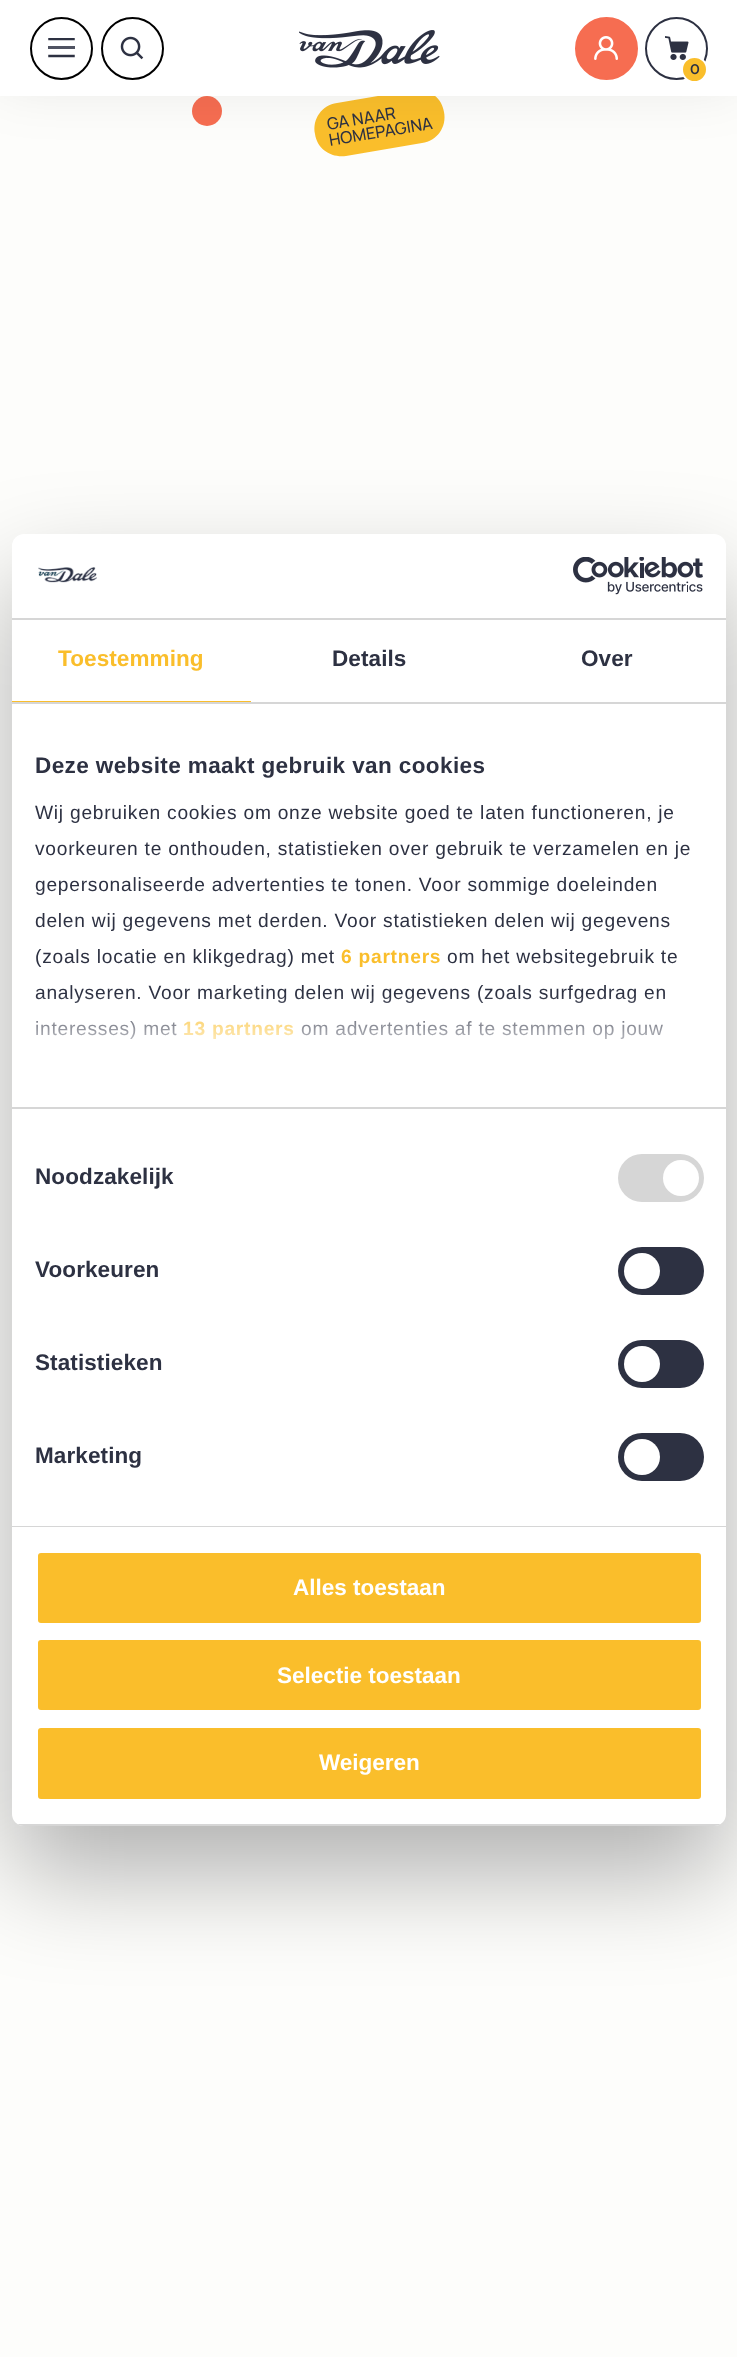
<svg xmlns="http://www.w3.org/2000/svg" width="737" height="2357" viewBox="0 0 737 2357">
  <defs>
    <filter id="blur1" x="-50%" y="-200%" width="200%" height="500%"><feGaussianBlur stdDeviation="29"/></filter>
    <clipPath id="clip1"><rect x="48" y="38" width="27" height="21"/></clipPath>
    <filter id="blur2" x="-50%" y="-200%" width="200%" height="500%"><feGaussianBlur stdDeviation="51"/></filter>
    <linearGradient id="g1" gradientUnits="userSpaceOnUse" x1="359" y1="1107" x2="359" y2="994"><stop offset="0" stop-color="#ffffff"/><stop offset="0.5" stop-color="#ffffff" stop-opacity="0.8"/><stop offset="1" stop-color="#ffffff" stop-opacity="0"/></linearGradient>
    <clipPath id="clip2"><rect x="12" y="534" width="714" height="1292" rx="12"/></clipPath>
  </defs>
  <rect width="100%" height="100%" fill="#fdfdfb"/>
  <circle cx="207" cy="111" r="15" fill="#f66d51"/>
  <path d="M337 103L413 90C428 88 442 97 444 112C447 127 437 141 422 143L346 156C331 158 317 149 315 134C312 119 322 105 337 103Z" fill="#fabe2b"/>
  <rect x="0" y="-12" width="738" height="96" fill="#000000" fill-opacity="0.1" filter="url(#blur1)"/>
  <rect x="0" y="0" width="737" height="96" fill="#ffffff"/>
  <circle cx="61.5" cy="48.5" r="30.5" fill="none" stroke="#000000" stroke-width="2"/>
  <g clip-path="url(#clip1)">
    <path d="M49.5 39H73.5" fill="none" stroke="#2d3142" stroke-width="2.5" stroke-linecap="square"/>
  </g>
  <rect x="48" y="46" width="27" height="3" fill="#505362"/>
  <path d="M49.5 56H73.5" fill="none" stroke="#2d3142" stroke-width="2.5" stroke-linecap="square"/>
  <circle cx="132.5" cy="48.5" r="30.5" fill="none" stroke="#000000" stroke-width="2"/>
  <image x="120" y="36" width="24" height="24" href="img1.png"/>
  <image x="299" y="30" width="141" height="38" href="img2.png"/>
  <circle cx="606.5" cy="48.5" r="30.5" fill="#f66d51" stroke="#f66d51" stroke-width="2"/>
  <image x="594" y="36" width="24" height="24" href="img3.png"/>
  <circle cx="676.5" cy="48.5" r="30.5" fill="none" stroke="#2d3142" stroke-width="2"/>
  <image x="665" y="36" width="24" height="24" href="img4.png"/>
  <circle cx="694.5" cy="69.5" r="12.5" fill="#fabe2b" stroke="#ffffff" stroke-width="2"/>
  <text x="690" y="74" font-family="DM Sans" font-size="14" font-weight="600" fill="#2d3142">0</text>
  <text x="328" y="130" transform="rotate(-9.5 328 130)" font-family="Manrope" font-size="16.5" font-weight="500" fill="#2d3142">GA NAAR</text>
  <text x="330" y="146" transform="rotate(-9.5 330 146)" font-family="Manrope" font-size="16.5" font-weight="500" fill="#2d3142">HOMEPAGINA</text>
  <rect x="12" y="582" width="714" height="1292" rx="12" fill="#000000" fill-opacity="0.3" filter="url(#blur2)"/>
  <rect x="12" y="534" width="714" height="1292" rx="12" fill="#ffffff"/>
  <rect x="12" y="618" width="714" height="2" fill="#d6d6d6"/>
  <image x="38" y="567" width="59" height="16" href="img5.png"/>
  <image x="573" y="557" width="130" height="38" href="img6.png"/>
  <rect x="12" y="702" width="714" height="2" fill="#d6d6d6"/>
  <rect x="12" y="701" width="239" height="1" fill="#fabe2b"/>
  <text x="58" y="666" font-family="Liberation Sans" font-size="22.5" font-weight="bold" letter-spacing="0.1" fill="#fabe2b">Toestemming</text>
  <text x="332" y="666" font-family="Liberation Sans" font-size="22.5" font-weight="bold" letter-spacing="0.1" fill="#2d3142">Details</text>
  <text x="581" y="666" font-family="Liberation Sans" font-size="22.5" font-weight="bold" letter-spacing="0.1" fill="#2d3142">Over</text>
  <rect x="12" y="1107" width="714" height="2" fill="#d6d6d6"/>
  <text x="35" y="773" font-family="Liberation Sans" font-size="22.5" font-weight="bold" letter-spacing="0.4" fill="#2d3142">Deze website maakt gebruik van cookies</text>
  <text x="35" y="819" font-family="Liberation Sans" font-size="19.2" letter-spacing="0.75" fill="#2d3142">Wij gebruiken cookies om onze website goed te laten functioneren, je</text>
  <text x="35" y="855" font-family="Liberation Sans" font-size="19.2" letter-spacing="0.75" fill="#2d3142">voorkeuren te onthouden, statistieken over gebruik te verzamelen en je</text>
  <text x="35" y="891" font-family="Liberation Sans" font-size="19.2" letter-spacing="0.75" fill="#2d3142">gepersonaliseerde advertenties te tonen. Voor sommige doeleinden</text>
  <text x="35" y="927" font-family="Liberation Sans" font-size="19.2" letter-spacing="0.75" fill="#2d3142">delen wij gegevens met derden. Voor statistieken delen wij gegevens</text>
  <text x="35" y="963" font-family="Liberation Sans" font-size="19.2" letter-spacing="0.75" fill="#2d3142">(zoals locatie en klikgedrag) met</text>
  <text x="341" y="963" font-family="Liberation Sans" font-size="19.2" font-weight="bold" letter-spacing="0.75" fill="#fabe2b">6 partners</text>
  <text x="447" y="963" font-family="Liberation Sans" font-size="19.2" letter-spacing="0.75" fill="#2d3142">om het websitegebruik te</text>
  <text x="35" y="999" font-family="Liberation Sans" font-size="19.2" letter-spacing="0.75" fill="#2d3142">analyseren. Voor marketing delen wij gegevens (zoals surfgedrag en</text>
  <text x="35" y="1035" font-family="Liberation Sans" font-size="19.2" letter-spacing="0.75" fill="#2d3142">interesses) met</text>
  <text x="183" y="1035" font-family="Liberation Sans" font-size="19.2" font-weight="bold" letter-spacing="0.75" fill="#fabe2b">13 partners</text>
  <text x="301" y="1035" font-family="Liberation Sans" font-size="19.2" letter-spacing="0.75" fill="#2d3142">om advertenties af te stemmen op jouw</text>
  <rect x="35" y="996" width="630" height="43" fill="url(#g1)"/>
  <rect x="12" y="1526" width="714" height="1" fill="#d6d6d6"/>
  <text x="35" y="1184" font-family="Liberation Sans" font-size="22.5" font-weight="bold" letter-spacing="0.1" fill="#2d3142">Noodzakelijk</text>
  <rect x="618" y="1154" width="86" height="48" rx="24" fill="#d6d6d6"/>
  <circle cx="681" cy="1178" r="18" fill="#ffffff"/>
  <text x="35" y="1277" font-family="Liberation Sans" font-size="22.5" font-weight="bold" letter-spacing="0.1" fill="#2d3142">Voorkeuren</text>
  <rect x="618" y="1247" width="86" height="48" rx="24" fill="#2d3142"/>
  <circle cx="642" cy="1271" r="18" fill="#ffffff"/>
  <text x="35" y="1370" font-family="Liberation Sans" font-size="22.5" font-weight="bold" letter-spacing="0.1" fill="#2d3142">Statistieken</text>
  <rect x="618" y="1340" width="86" height="48" rx="24" fill="#2d3142"/>
  <circle cx="642" cy="1364" r="18" fill="#ffffff"/>
  <text x="35" y="1463" font-family="Liberation Sans" font-size="22.5" font-weight="bold" letter-spacing="0.1" fill="#2d3142">Marketing</text>
  <rect x="618" y="1433" width="86" height="48" rx="24" fill="#2d3142"/>
  <circle cx="642" cy="1457" r="18" fill="#ffffff"/>
  <g clip-path="url(#clip2)">
    <rect x="12" y="1824" width="714" height="2" fill="#d6d6d6"/>
  </g>
  <rect x="36.5" y="1551.5" width="666" height="73" rx="4.5" fill="#fabe2b" stroke="#ffffff" stroke-width="3"/>
  <text x="293" y="1595" font-family="Liberation Sans" font-size="22.5" font-weight="bold" fill="#ffffff">Alles toestaan</text>
  <rect x="36.5" y="1638.5" width="666" height="73" rx="4.5" fill="#fabe2b" stroke="#ffffff" stroke-width="3"/>
  <text x="277" y="1683" font-family="Liberation Sans" font-size="22.5" font-weight="bold" fill="#ffffff">Selectie toestaan</text>
  <rect x="36.5" y="1726.5" width="666" height="74" rx="4.5" fill="#fabe2b" stroke="#ffffff" stroke-width="3"/>
  <text x="319" y="1770" font-family="Liberation Sans" font-size="22.5" font-weight="bold" fill="#ffffff">Weigeren</text>
</svg>
